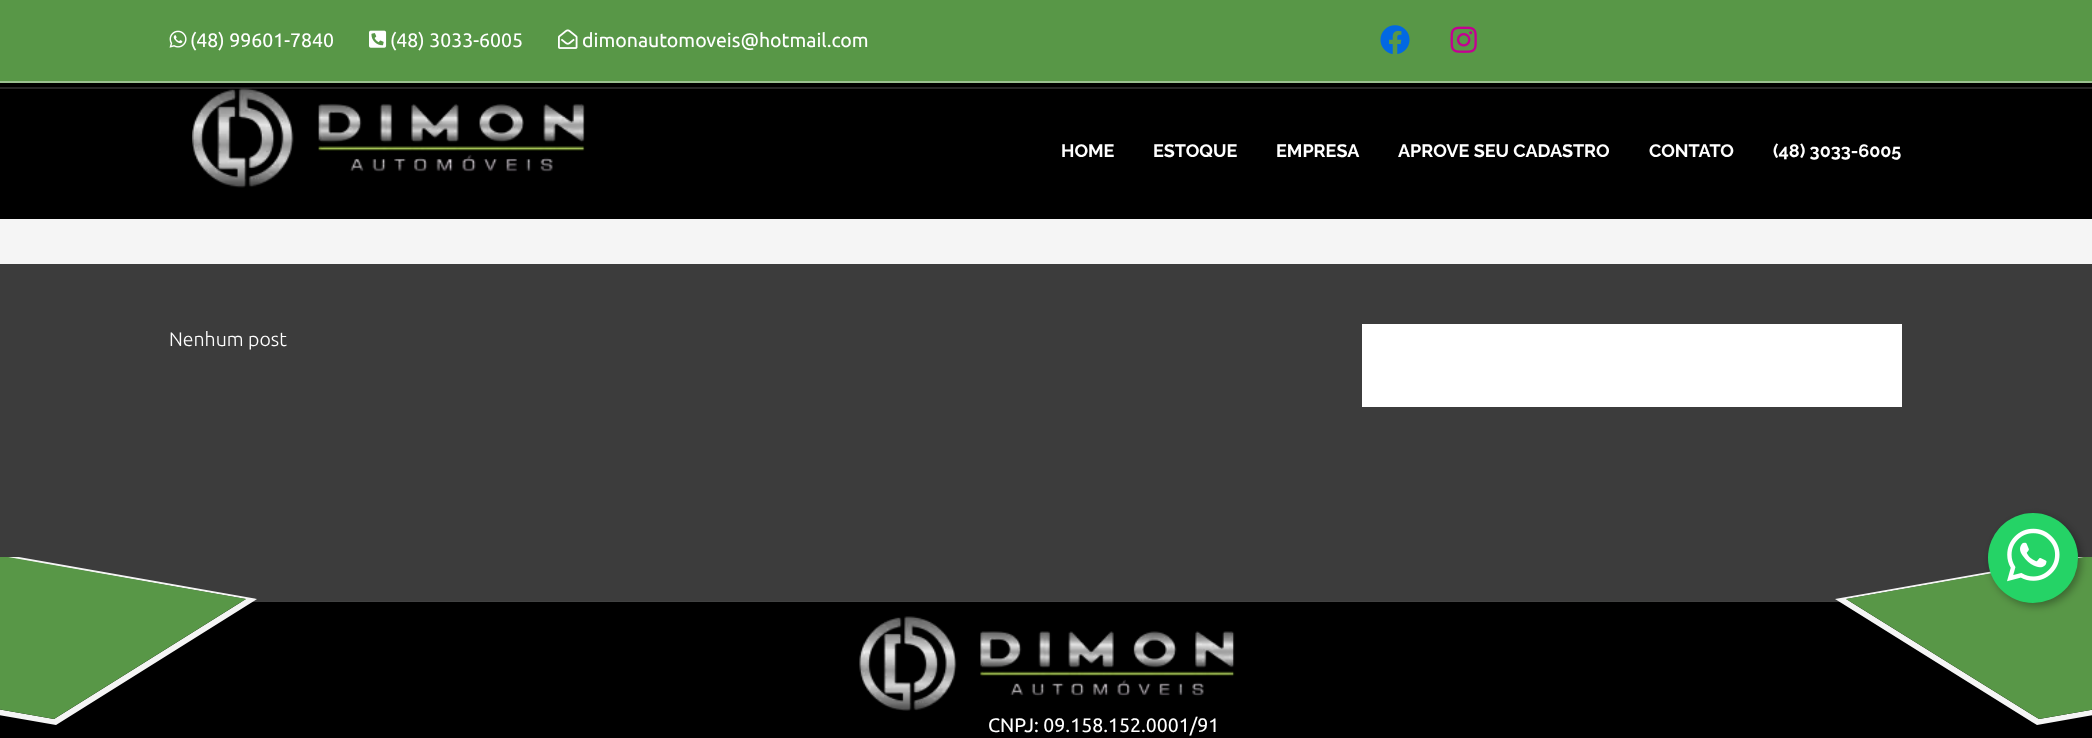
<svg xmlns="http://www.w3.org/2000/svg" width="2092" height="738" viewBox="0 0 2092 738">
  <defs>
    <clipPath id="clip1"><rect x="0" y="219" width="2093" height="45"/></clipPath>
    <clipPath id="clip2"><rect x="0" y="557" width="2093" height="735"/></clipPath>
    <filter id="blur1" x="-50%" y="-200%" width="200%" height="500%"><feGaussianBlur stdDeviation="4"/></filter>
  </defs>
  <rect width="100%" height="100%" fill="#3c3c3c"/>
  <rect x="0" y="83" width="2092" height="136" fill="#000000"/>
  <rect x="0" y="0" width="2092" height="81" fill="#589747"/>
  <rect x="0" y="81" width="2092" height="2" fill="#9bc191"/>
  <image x="169" y="30" width="18" height="18" href="img1.png"/>
  <text x="190" y="47" font-family="Ubuntu" font-size="19.5" fill="#ffffff">(48) 99601-7840</text>
  <image x="369" y="30" width="18" height="18" href="img2.png"/>
  <text x="390" y="47" font-family="Ubuntu" font-size="19.5" fill="#ffffff">(48) 3033-6005</text>
  <image x="558" y="29" width="20" height="20" href="img3.png"/>
  <text x="582" y="47" font-family="Ubuntu" font-size="19.5" fill="#ffffff">dimonautomoveis@hotmail.com</text>
  <image x="1380" y="25" width="30" height="29" href="img4.png"/>
  <image x="1450" y="26" width="27" height="27" href="img5.png"/>
  <rect x="0" y="87" width="2092" height="2" fill="#262626"/>
  <image x="192" y="88" width="393" height="100" href="img6.png"/>
  <text x="1061" y="157" font-family="Raleway" font-size="18" font-weight="bold" fill="#ffffff">HOME</text>
  <text x="1153" y="157" font-family="Raleway" font-size="18" font-weight="bold" fill="#ffffff">ESTOQUE</text>
  <text x="1276" y="157" font-family="Raleway" font-size="18" font-weight="bold" fill="#ffffff">EMPRESA</text>
  <text x="1398" y="157" font-family="Raleway" font-size="18" font-weight="bold" fill="#ffffff">APROVE SEU CADASTRO</text>
  <text x="1649" y="157" font-family="Raleway" font-size="18" font-weight="bold" fill="#ffffff">CONTATO</text>
  <text x="1773" y="157" font-family="Raleway" font-size="18" font-weight="bold" fill="#ffffff">(48) 3033-6005</text>
  <g clip-path="url(#clip1)">
    <path d="M0 118L1046 200V367L0 285Z" fill="#f5f5f5"/>
    <path d="M1046 200L2092 118V285L1046 367Z" fill="#f5f5f5"/>
  </g>
  <text x="169" y="346" font-family="Ubuntu" font-size="19.5" font-weight="300" fill="#ffffff">Nenhum post</text>
  <rect x="1362" y="324" width="540" height="83" fill="#ffffff"/>
  <image x="241" y="601" width="1610" height="1" href="img7.png"/>
  <rect x="0" y="602" width="2092" height="136" fill="#000000"/>
  <g clip-path="url(#clip2)">
    <path d="M-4 553L-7 555L246 599L54 719L-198 675L-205 679L56 725L257 599Z" fill="#f5f5f5"/>
    <path d="M-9 554L246 599L54 719L-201 674Z" fill="#589747"/>
  </g>
  <image x="859" y="616" width="376" height="95" href="img8.png"/>
  <text x="988" y="732" font-family="Ubuntu" font-size="19.5" fill="#ffffff">CNPJ: 09.158.152.0001/91</text>
  <g clip-path="url(#clip2)">
    <path d="M1835 599L2037 725L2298 679L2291 675L2039 719L1846 599L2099 555L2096 553Z" fill="#f5f5f5"/>
    <path d="M1846 599L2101 554L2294 674L2039 719Z" fill="#589747"/>
  </g>
  <rect x="1991" y="516" width="90" height="90" rx="45" fill="#000000" fill-opacity="0.34" filter="url(#blur1)"/>
  <circle cx="2033" cy="558" r="45" fill="#25d366"/>
  <image x="2007" y="528" width="53" height="54" href="img9.png"/>
</svg>
